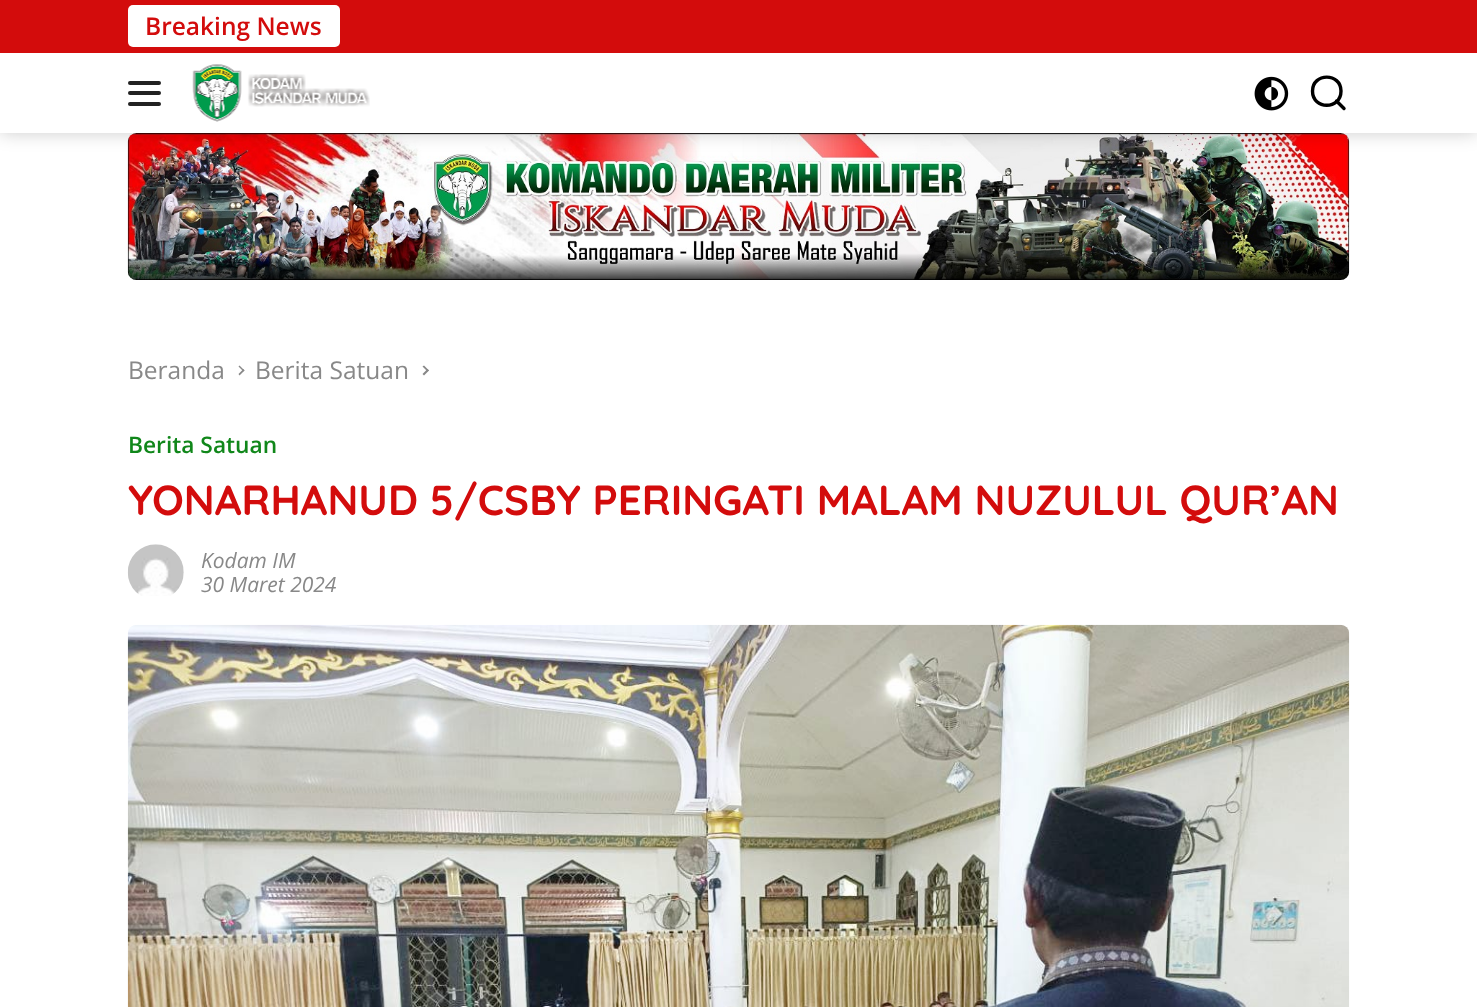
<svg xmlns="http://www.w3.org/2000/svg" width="1477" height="1007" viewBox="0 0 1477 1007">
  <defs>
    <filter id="blur1" x="-50%" y="-200%" width="200%" height="500%"><feGaussianBlur stdDeviation="9"/></filter>
  </defs>
  <rect width="100%" height="100%" fill="#ffffff"/>
  <image x="127" y="133" width="1223" height="147" href="img3.png"/>
  <rect x="0" y="0" width="1477" height="133" fill="#000000" fill-opacity="0.2" filter="url(#blur1)"/>
  <rect x="0" y="53" width="1477" height="80" fill="#ffffff"/>
  <rect x="0" y="0" width="1477" height="53" fill="#d30c0c"/>
  <rect x="128" y="5" width="212" height="42" rx="5" fill="#ffffff"/>
  <text x="145" y="35" font-family="Open Sans" font-size="24.5" font-weight="600" fill="#d30c0c">Breaking News</text>
  <rect x="128" y="81" width="33" height="4" rx="2" fill="#222222"/>
  <rect x="128" y="91" width="33" height="4" rx="2" fill="#222222"/>
  <rect x="128" y="102" width="33" height="4" rx="2" fill="#222222"/>
  <image x="192" y="64" width="178" height="58" href="img1.png"/>
  <image x="1254" y="76" width="35" height="35" href="img2.png"/>
  <path d="M1344 108.5L1336.5 101M1341 91C1341 110 1312.5 110 1312.5 91C1312.5 72.5 1341 72.5 1341 91Z" fill="none" stroke="#000000" stroke-width="3.4" stroke-linecap="round"/>
  <text x="128" y="379" font-family="Open Sans" font-size="24.5" fill="#888888">Beranda</text>
  <path d="M238.5 366.5L239.5 365.5L244.5 370.5L243.5 371.5Z" fill="#888888"/>
  <path d="M238.5 374L243.5 369L244.5 370.5L239.5 375.5Z" fill="#888888"/>
  <text x="255" y="379" font-family="Open Sans" font-size="24.5" fill="#888888">Berita Satuan</text>
  <path d="M422.5 366.5L424 365.5L429 370.5L427.5 371.5Z" fill="#888888"/>
  <path d="M422.5 374L427.5 369L429 370.5L424 375.5Z" fill="#888888"/>
  <text x="128" y="453" font-family="Open Sans" font-size="22.75" font-weight="600" fill="#10871a">Berita Satuan</text>
  <text x="128" y="515" font-family="Quicksand" font-size="42" font-weight="bold" fill="#d30c0c">YONARHANUD 5/CSBY PERINGATI MALAM NUZULUL QUR’AN</text>
  <image x="127" y="544" width="57" height="52" href="img4.png"/>
  <text x="201" y="568" font-family="Open Sans" font-size="21" font-style="italic" fill="#888888">Kodam IM</text>
  <text x="201" y="592" font-family="Open Sans" font-size="21" font-style="italic" fill="#888888">30 Maret 2024</text>
  <image x="127" y="624" width="1223" height="383" href="img5.png"/>
</svg>
